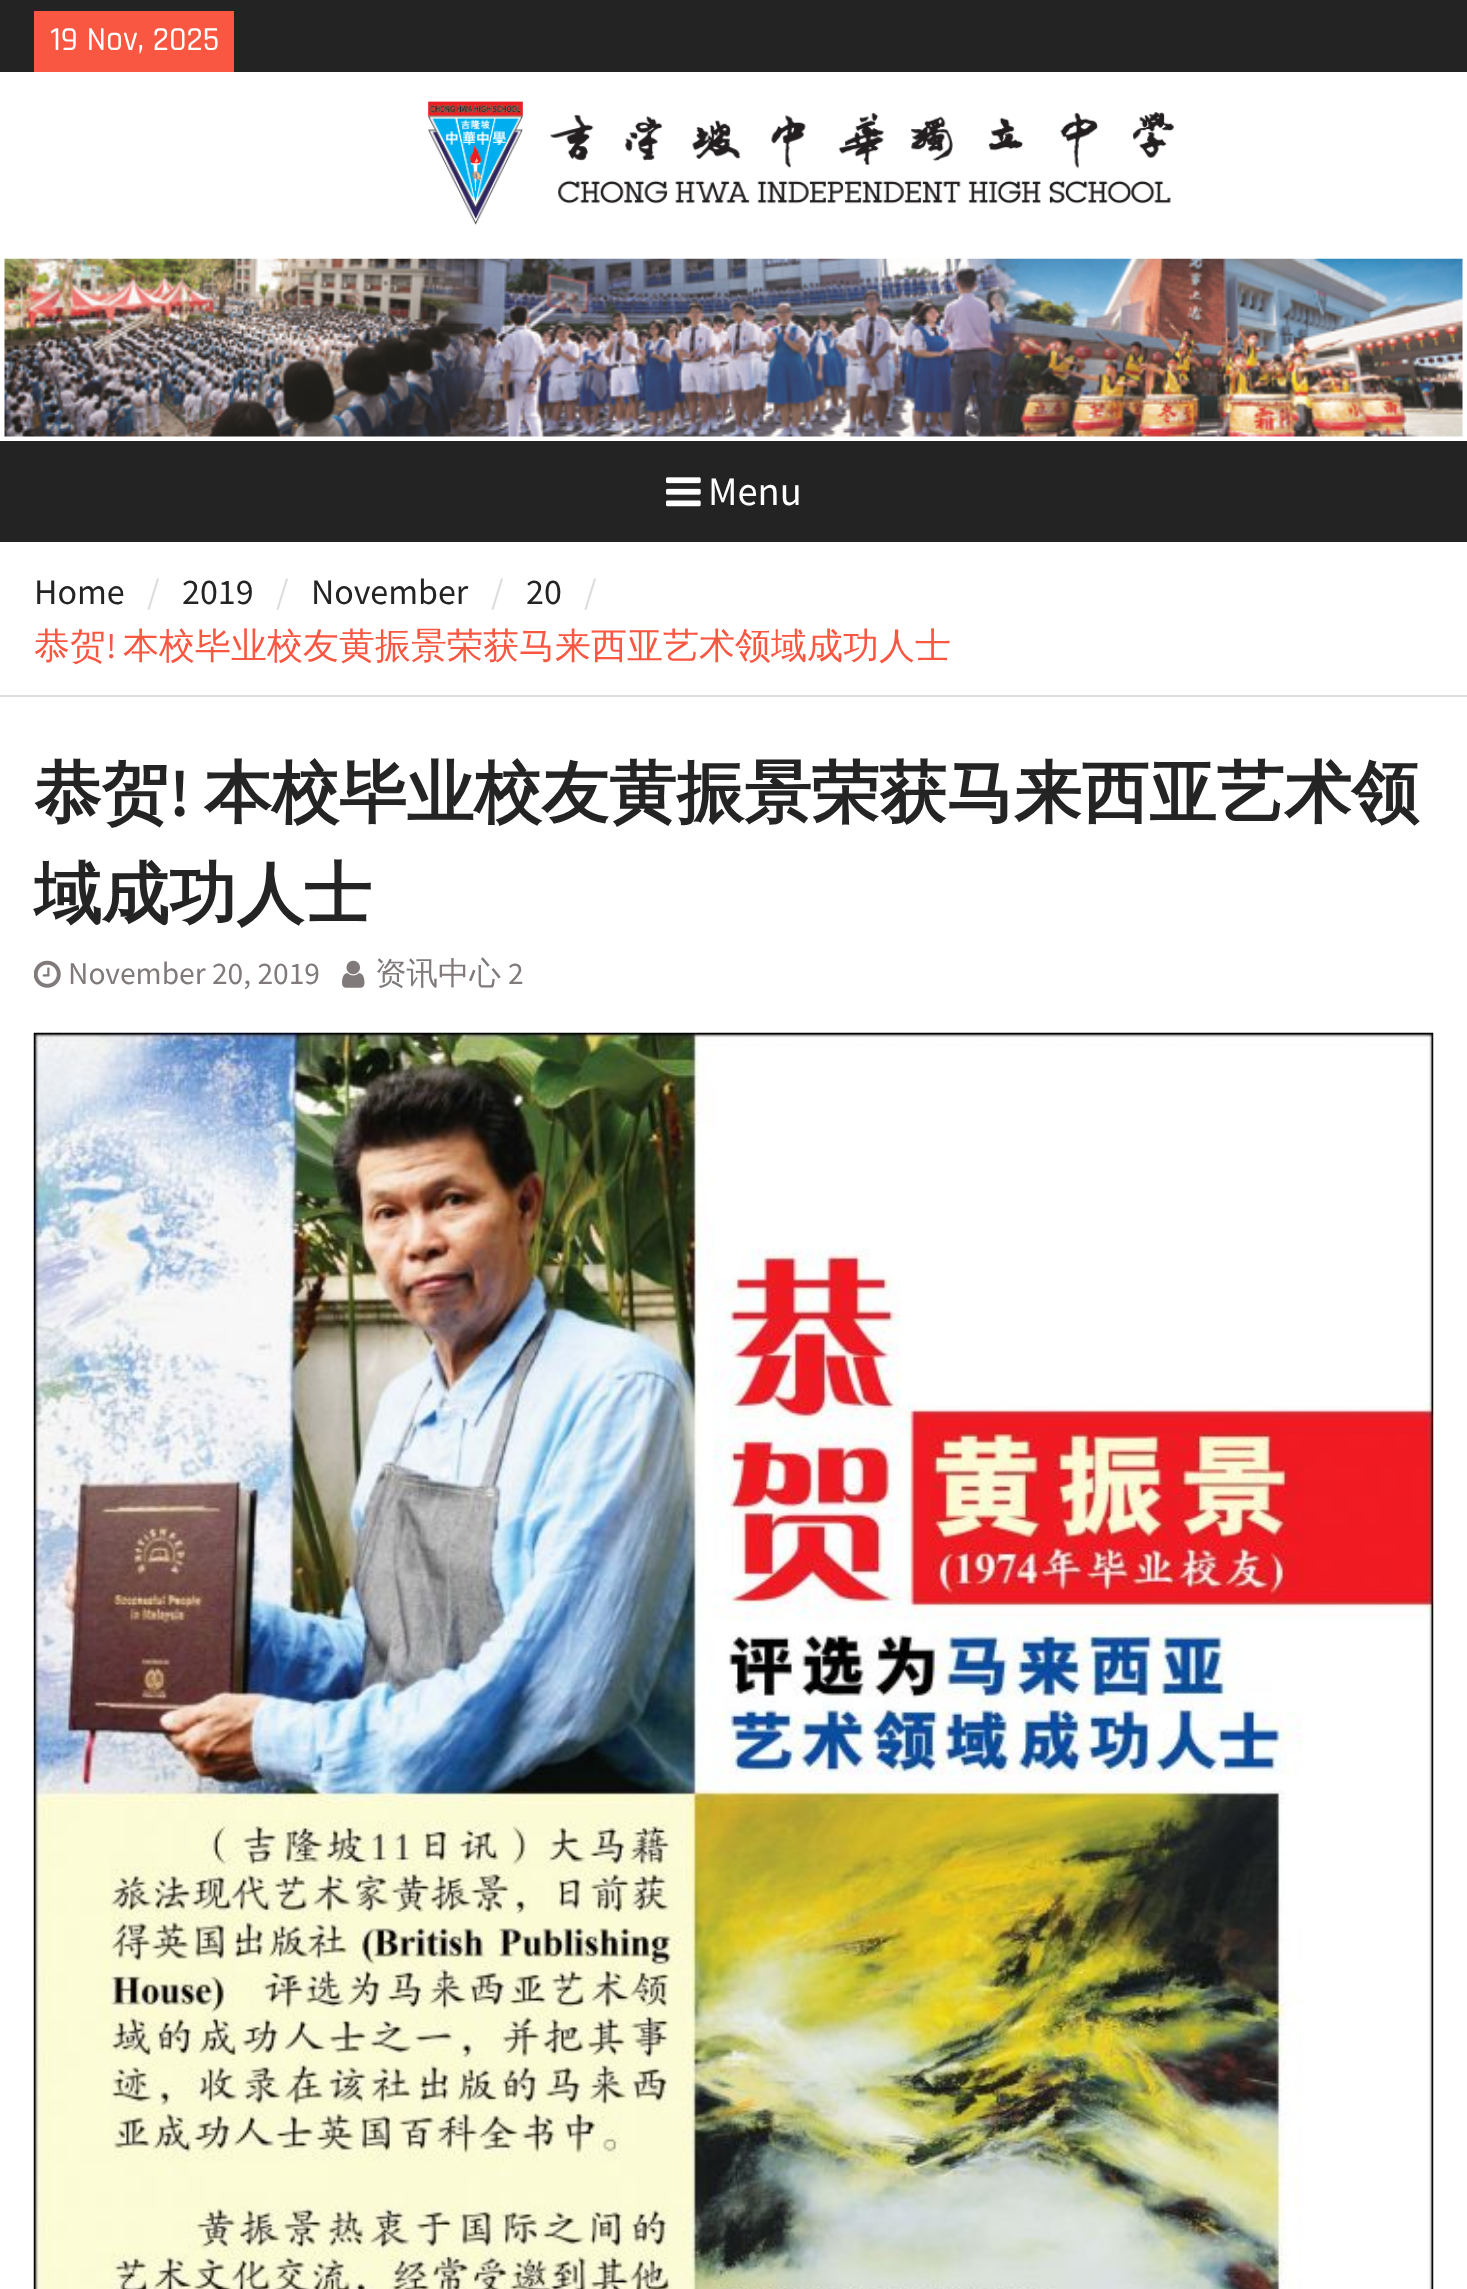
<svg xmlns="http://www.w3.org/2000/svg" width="1467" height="2289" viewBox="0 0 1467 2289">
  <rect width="100%" height="100%" fill="#ffffff"/>
  <rect x="0" y="0" width="1467" height="72" fill="#232323"/>
  <rect x="34" y="11" width="200" height="61" fill="#fa5742"/>
  <text x="50" y="50" font-family="Rajdhani" font-size="33.75" font-weight="500" fill="#ffffff">19 Nov, 2025</text>
  <image x="428" y="101" width="746" height="124" href="img1.png"/>
  <image x="4" y="258" width="1459" height="179" href="img2.png"/>
  <rect x="0" y="441" width="1467" height="101" fill="#232323"/>
  <image x="666" y="477" width="35" height="30" href="img3.png"/>
  <text x="708" y="505" font-family="Source Sans Pro" font-size="40.5" fill="#ffffff">Menu</text>
  <rect x="0" y="695" width="1467" height="2" fill="#dddddd"/>
  <text x="34" y="604" font-family="Source Sans Pro" font-size="36" fill="#242424">Home</text>
  <text x="147" y="604" font-family="Source Sans Pro" font-size="36" fill="#dddddd">/</text>
  <text x="182" y="604" font-family="Source Sans Pro" font-size="36" fill="#242424">2019</text>
  <text x="276" y="604" font-family="Source Sans Pro" font-size="36" fill="#dddddd">/</text>
  <text x="311" y="604" font-family="Source Sans Pro" font-size="36" fill="#242424">November</text>
  <text x="491" y="604" font-family="Source Sans Pro" font-size="36" fill="#dddddd">/</text>
  <text x="526" y="604" font-family="Source Sans Pro" font-size="36" fill="#242424">20</text>
  <text x="584" y="604" font-family="Source Sans Pro" font-size="36" fill="#dddddd">/</text>
  <text x="34" y="658" font-family="WenQuanYi Zen Hei" font-size="36" font-weight="500" fill="#fa5742">恭贺</text>
  <text x="106" y="658" font-family="Source Sans Pro" font-size="36" fill="#fa5742">!</text>
  <text x="123" y="658" font-family="WenQuanYi Zen Hei" font-size="36" font-weight="500" fill="#fa5742">本校毕业校友黄振景荣获马来西亚艺术领域成功人士</text>
  <text x="34" y="816" font-family="WenQuanYi Zen Hei" font-size="67.5" font-weight="bold" fill="#242424">恭贺</text>
  <text x="169" y="816" font-family="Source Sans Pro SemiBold" font-size="67.5" font-weight="600" fill="#242424">!</text>
  <text x="204" y="816" font-family="WenQuanYi Zen Hei" font-size="67.5" font-weight="bold" fill="#242424">本校毕业校友黄振景荣获马来西亚艺术领</text>
  <text x="34" y="917" font-family="WenQuanYi Zen Hei" font-size="67.5" font-weight="bold" fill="#242424">域成功人士</text>
  <image x="34" y="960" width="27" height="28" href="img4.png"/>
  <text x="68" y="984" font-family="Source Sans Pro" font-size="31.5" fill="#807a7a">November 20, 2019</text>
  <image x="342" y="960" width="23" height="28" href="img5.png"/>
  <text x="375" y="984" font-family="WenQuanYi Zen Hei" font-size="31.5" font-weight="500" fill="#807a7a">资讯中心</text>
  <text x="508" y="984" font-family="Source Sans Pro" font-size="31.5" fill="#807a7a">2</text>
  <image x="33" y="1032" width="1401" height="1257" href="img6.png"/>
</svg>
